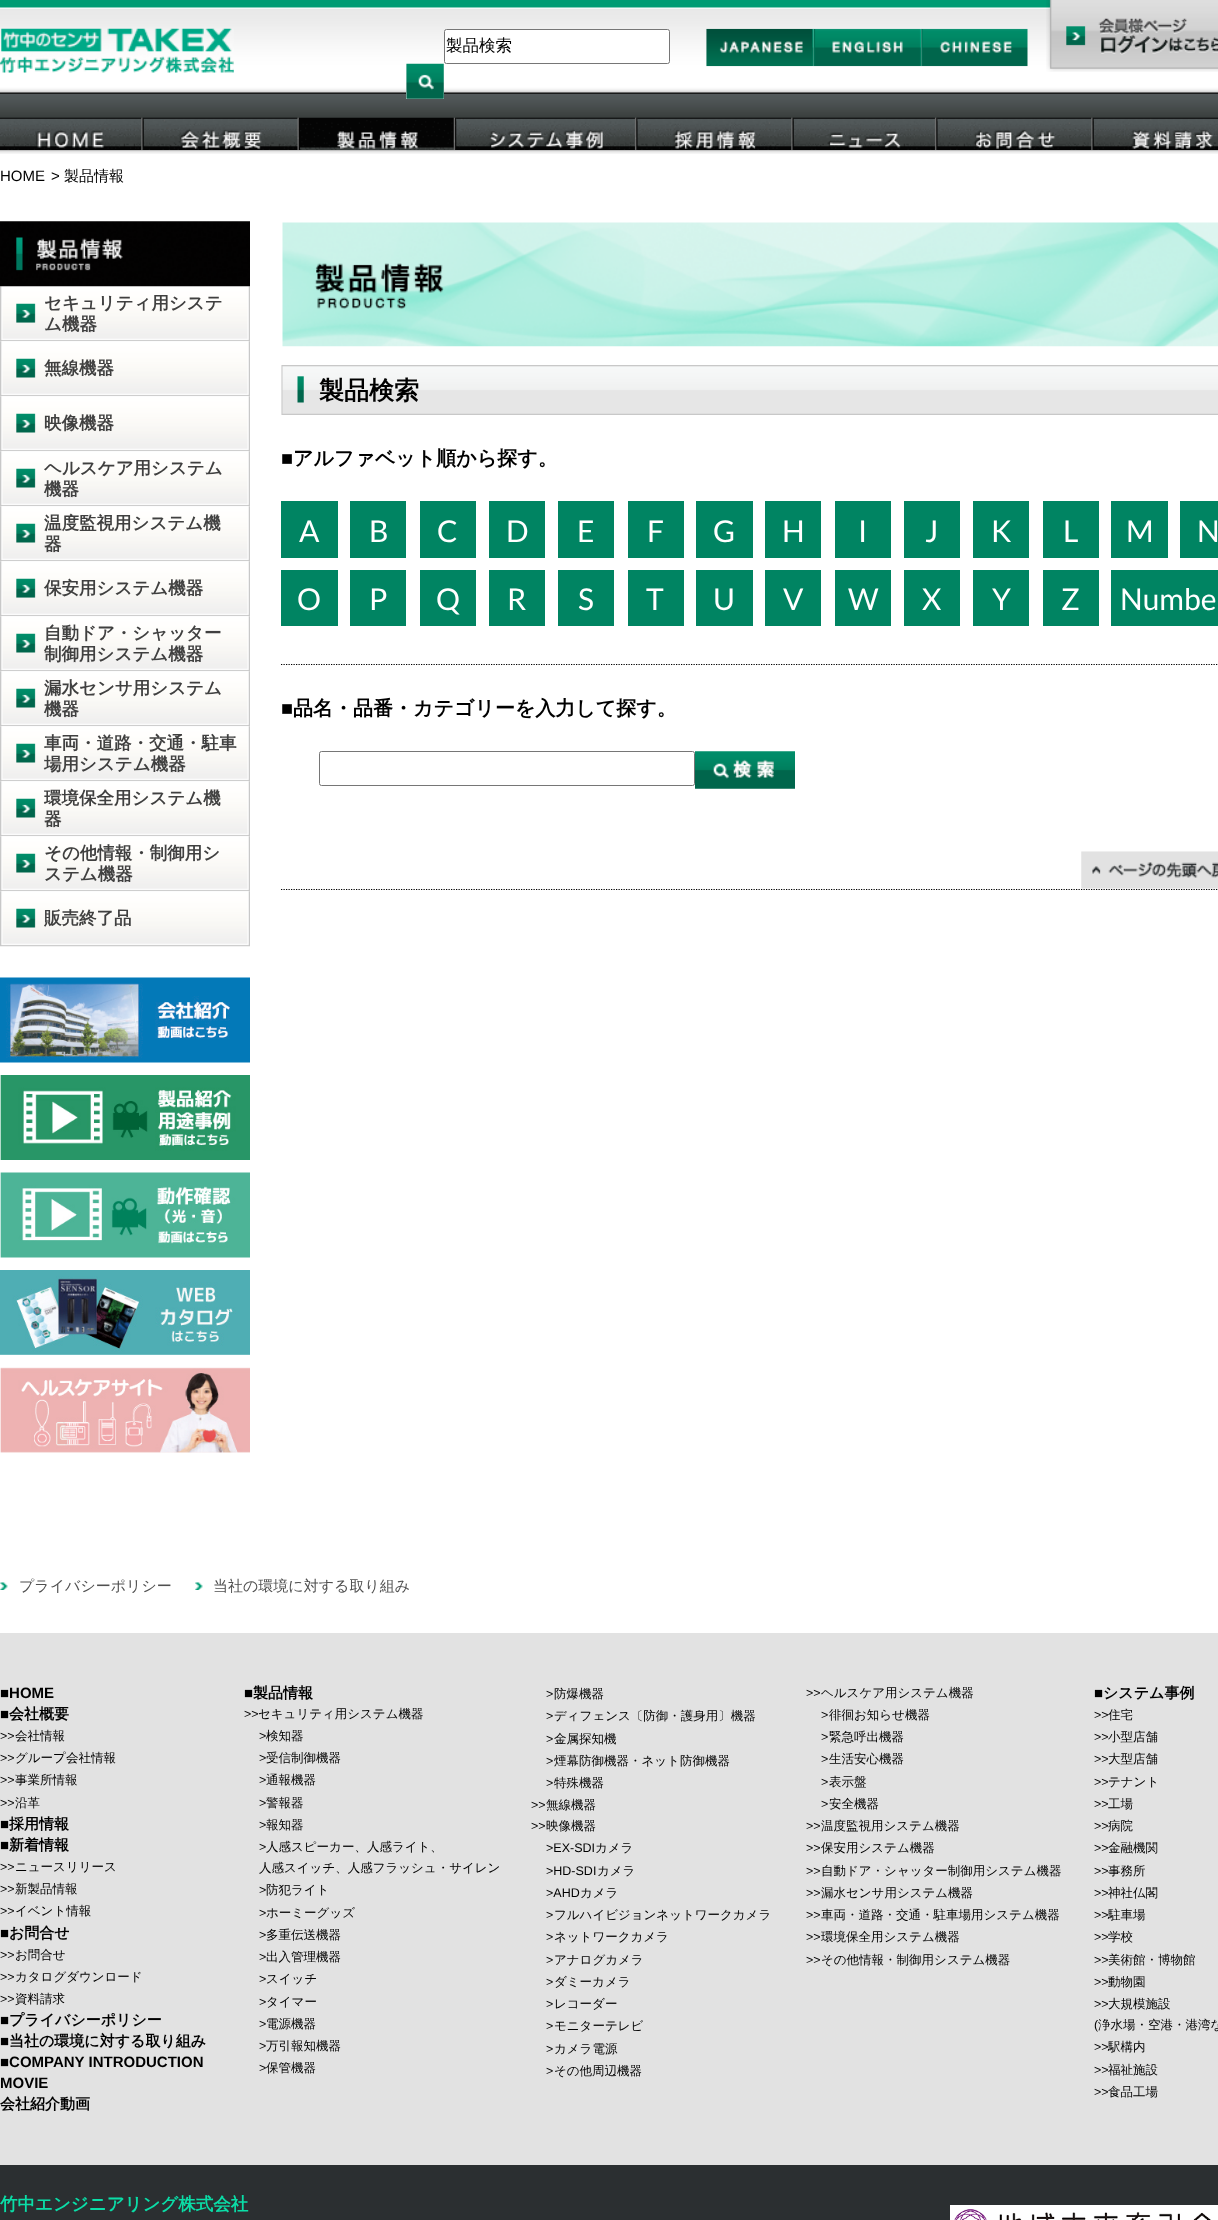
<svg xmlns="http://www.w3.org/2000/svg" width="1218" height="2220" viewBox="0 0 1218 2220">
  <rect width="100%" height="100%" fill="#ffffff"/>
  <image x="0" y="0" width="1218" height="154" href="img1.png"/>
  <image x="0" y="28" width="234" height="45" href="img2.png"/>
  <rect x="444.5" y="29.5" width="225" height="34" rx="2" fill="#ffffff" stroke="#767676"/>
  <text x="446" y="51" font-family="WenQuanYi Zen Hei" font-size="16.5" font-weight="500" fill="#000000">製品検索</text>
  <rect x="406" y="64" width="38" height="35" fill="#efefef"/>
  <image x="406" y="63" width="38" height="36" href="img3.png"/>
  <image x="706" y="28" width="108" height="39" href="img4.png"/>
  <image x="813" y="28" width="109" height="39" href="img5.png"/>
  <image x="921" y="28" width="107" height="39" href="img6.png"/>
  <image x="1046" y="0" width="172" height="72" href="img7.png"/>
  <image x="0" y="117" width="144" height="33" href="img8.png"/>
  <image x="143" y="117" width="157" height="33" href="img9.png"/>
  <image x="300" y="117" width="157" height="33" href="img10.png"/>
  <image x="456" y="117" width="182" height="33" href="img11.png"/>
  <image x="637" y="117" width="157" height="33" href="img12.png"/>
  <image x="793" y="117" width="145" height="33" href="img13.png"/>
  <image x="937" y="117" width="157" height="33" href="img14.png"/>
  <image x="1093" y="117" width="125" height="33" href="img15.png"/>
  <text x="0" y="181" font-family="Liberation Sans" font-size="15" fill="#000000">HOME</text>
  <text x="51" y="181" font-family="Liberation Sans" font-size="15" fill="#000000">&gt;</text>
  <text x="64" y="181" font-family="WenQuanYi Zen Hei" font-size="15" font-weight="500" fill="#000000">製品情報</text>
  <image x="0" y="286" width="250" height="56" href="img17.png"/>
  <image x="0" y="221" width="250" height="66" href="img16.png"/>
  <text x="44" y="309" font-family="WenQuanYi Zen Hei" font-size="17.5" font-weight="bold" fill="#404040">セキュリティ用システ</text>
  <text x="44" y="330" font-family="WenQuanYi Zen Hei" font-size="17.5" font-weight="bold" fill="#404040">ム機器</text>
  <image x="0" y="341" width="250" height="56" href="img18.png"/>
  <text x="44" y="374" font-family="WenQuanYi Zen Hei" font-size="17.5" font-weight="bold" fill="#404040">無線機器</text>
  <image x="0" y="396" width="250" height="56" href="img18.png"/>
  <text x="44" y="429" font-family="WenQuanYi Zen Hei" font-size="17.5" font-weight="bold" fill="#404040">映像機器</text>
  <image x="0" y="451" width="250" height="56" href="img18.png"/>
  <text x="44" y="474" font-family="WenQuanYi Zen Hei" font-size="17.5" font-weight="bold" fill="#404040">ヘルスケア用システム</text>
  <text x="44" y="495" font-family="WenQuanYi Zen Hei" font-size="17.5" font-weight="bold" fill="#404040">機器</text>
  <image x="0" y="506" width="250" height="56" href="img18.png"/>
  <text x="44" y="529" font-family="WenQuanYi Zen Hei" font-size="17.5" font-weight="bold" fill="#404040">温度監視用システム機</text>
  <text x="44" y="550" font-family="WenQuanYi Zen Hei" font-size="17.5" font-weight="bold" fill="#404040">器</text>
  <image x="0" y="561" width="250" height="56" href="img19.png"/>
  <text x="44" y="594" font-family="WenQuanYi Zen Hei" font-size="17.5" font-weight="bold" fill="#404040">保安用システム機器</text>
  <image x="0" y="616" width="250" height="56" href="img18.png"/>
  <text x="44" y="639" font-family="WenQuanYi Zen Hei" font-size="17.5" font-weight="bold" fill="#404040">自動ドア・シャッター</text>
  <text x="44" y="660" font-family="WenQuanYi Zen Hei" font-size="17.5" font-weight="bold" fill="#404040">制御用システム機器</text>
  <image x="0" y="671" width="250" height="56" href="img18.png"/>
  <text x="44" y="694" font-family="WenQuanYi Zen Hei" font-size="17.5" font-weight="bold" fill="#404040">漏水センサ用システム</text>
  <text x="44" y="715" font-family="WenQuanYi Zen Hei" font-size="17.5" font-weight="bold" fill="#404040">機器</text>
  <image x="0" y="726" width="250" height="56" href="img18.png"/>
  <text x="44" y="749" font-family="WenQuanYi Zen Hei" font-size="17.5" font-weight="bold" fill="#404040">車両・道路・交通・駐車</text>
  <text x="44" y="770" font-family="WenQuanYi Zen Hei" font-size="17.5" font-weight="bold" fill="#404040">場用システム機器</text>
  <image x="0" y="781" width="250" height="56" href="img18.png"/>
  <text x="44" y="804" font-family="WenQuanYi Zen Hei" font-size="17.5" font-weight="bold" fill="#404040">環境保全用システム機</text>
  <text x="44" y="825" font-family="WenQuanYi Zen Hei" font-size="17.5" font-weight="bold" fill="#404040">器</text>
  <image x="0" y="836" width="250" height="56" href="img18.png"/>
  <text x="44" y="859" font-family="WenQuanYi Zen Hei" font-size="17.5" font-weight="bold" fill="#404040">その他情報・制御用シ</text>
  <text x="44" y="880" font-family="WenQuanYi Zen Hei" font-size="17.5" font-weight="bold" fill="#404040">ステム機器</text>
  <image x="0" y="891" width="250" height="56" href="img18.png"/>
  <text x="44" y="924" font-family="WenQuanYi Zen Hei" font-size="17.5" font-weight="bold" fill="#404040">販売終了品</text>
  <image x="0" y="977" width="250" height="86" href="img20.png"/>
  <image x="0" y="1075" width="250" height="85" href="img21.png"/>
  <image x="0" y="1172" width="250" height="86" href="img22.png"/>
  <image x="0" y="1270" width="250" height="85" href="img23.png"/>
  <image x="0" y="1367" width="250" height="86" href="img24.png"/>
  <image x="282" y="222" width="936" height="125" href="img25.png"/>
  <image x="281" y="365" width="937" height="50" href="img26.png"/>
  <text x="319" y="399" font-family="WenQuanYi Zen Hei" font-size="25" font-weight="bold" fill="#000000">製品検索</text>
  <text x="281" y="465" font-family="Liberation Sans" font-size="20" font-weight="bold" fill="#000000">■</text>
  <text x="293" y="465" font-family="WenQuanYi Zen Hei" font-size="20" font-weight="bold" fill="#000000">アルファベット順から探す。</text>
  <path d="M281 664.5H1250" fill="none" stroke="#000000" stroke-width="1.2" stroke-dasharray="1.25 1.25"/>
  <rect x="281" y="501" width="57" height="57" fill="#008462"/>
  <text x="299" y="542" font-family="Lato" font-size="30" fill="#ffffff">A</text>
  <rect x="350" y="501" width="56" height="57" fill="#008462"/>
  <text x="369" y="542" font-family="Lato" font-size="30" fill="#ffffff">B</text>
  <rect x="420" y="501" width="56" height="57" fill="#008462"/>
  <text x="437" y="542" font-family="Lato" font-size="30" fill="#ffffff">C</text>
  <rect x="489" y="501" width="56" height="57" fill="#008462"/>
  <text x="506" y="542" font-family="Lato" font-size="30" fill="#ffffff">D</text>
  <rect x="558" y="501" width="56" height="57" fill="#008462"/>
  <text x="577" y="542" font-family="Lato" font-size="30" fill="#ffffff">E</text>
  <rect x="628" y="501" width="56" height="57" fill="#008462"/>
  <text x="647" y="542" font-family="Lato" font-size="30" fill="#ffffff">F</text>
  <rect x="696" y="501" width="57" height="57" fill="#008462"/>
  <text x="713" y="542" font-family="Lato" font-size="30" fill="#ffffff">G</text>
  <rect x="765" y="501" width="56" height="57" fill="#008462"/>
  <text x="782" y="542" font-family="Lato" font-size="30" fill="#ffffff">H</text>
  <rect x="835" y="501" width="56" height="57" fill="#008462"/>
  <text x="858" y="542" font-family="Lato" font-size="30" fill="#ffffff">I</text>
  <rect x="904" y="501" width="56" height="57" fill="#008462"/>
  <text x="925" y="542" font-family="Lato" font-size="30" fill="#ffffff">J</text>
  <rect x="973" y="501" width="56" height="57" fill="#008462"/>
  <text x="991" y="542" font-family="Lato" font-size="30" fill="#ffffff">K</text>
  <rect x="1043" y="501" width="56" height="57" fill="#008462"/>
  <text x="1063" y="542" font-family="Lato" font-size="30" fill="#ffffff">L</text>
  <rect x="1111" y="501" width="57" height="57" fill="#008462"/>
  <text x="1126" y="542" font-family="Lato" font-size="30" fill="#ffffff">M</text>
  <rect x="1180" y="501" width="38" height="57" fill="#008462"/>
  <text x="1197" y="542" font-family="Lato" font-size="30" fill="#ffffff">N</text>
  <rect x="281" y="570" width="57" height="56" fill="#008462"/>
  <text x="297" y="610" font-family="Lato" font-size="30" fill="#ffffff">O</text>
  <rect x="350" y="570" width="56" height="56" fill="#008462"/>
  <text x="369" y="610" font-family="Lato" font-size="30" fill="#ffffff">P</text>
  <rect x="420" y="570" width="56" height="56" fill="#008462"/>
  <text x="436" y="610" font-family="Lato" font-size="30" fill="#ffffff">Q</text>
  <rect x="489" y="570" width="56" height="56" fill="#008462"/>
  <text x="507" y="610" font-family="Lato" font-size="30" fill="#ffffff">R</text>
  <rect x="558" y="570" width="56" height="56" fill="#008462"/>
  <text x="578" y="610" font-family="Lato" font-size="30" fill="#ffffff">S</text>
  <rect x="628" y="570" width="56" height="56" fill="#008462"/>
  <text x="646" y="610" font-family="Lato" font-size="30" fill="#ffffff">T</text>
  <rect x="696" y="570" width="57" height="56" fill="#008462"/>
  <text x="713" y="610" font-family="Lato" font-size="30" fill="#ffffff">U</text>
  <rect x="765" y="570" width="56" height="56" fill="#008462"/>
  <text x="783" y="610" font-family="Lato" font-size="30" fill="#ffffff">V</text>
  <rect x="835" y="570" width="56" height="56" fill="#008462"/>
  <text x="848" y="610" font-family="Lato" font-size="30" fill="#ffffff">W</text>
  <rect x="904" y="570" width="56" height="56" fill="#008462"/>
  <text x="922" y="610" font-family="Lato" font-size="30" fill="#ffffff">X</text>
  <rect x="973" y="570" width="56" height="56" fill="#008462"/>
  <text x="992" y="610" font-family="Lato" font-size="30" fill="#ffffff">Y</text>
  <rect x="1043" y="570" width="56" height="56" fill="#008462"/>
  <text x="1061" y="610" font-family="Lato" font-size="30" fill="#ffffff">Z</text>
  <rect x="1111" y="570" width="107" height="56" fill="#008462"/>
  <text x="1120" y="610" font-family="Lato" font-size="30" fill="#ffffff">Numbe</text>
  <text x="281" y="715" font-family="Liberation Sans" font-size="20" font-weight="bold" fill="#000000">■</text>
  <text x="293" y="715" font-family="WenQuanYi Zen Hei" font-size="20" font-weight="bold" fill="#000000">品名・品番・カテゴリーを入力して探す。</text>
  <rect x="319.5" y="751.5" width="375" height="34" rx="2" fill="none" stroke="#767676"/>
  <image x="695" y="751" width="100" height="38" href="img27.png"/>
  <path d="M281 889.5H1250" fill="none" stroke="#000000" stroke-width="1.2" stroke-dasharray="1.25 1.25"/>
  <image x="1081" y="851" width="137" height="38" href="img28.png"/>
  <image x="0" y="1582" width="8" height="8" href="img29.png"/>
  <text x="19" y="1591" font-family="WenQuanYi Zen Hei" font-size="15" font-weight="500" fill="#505050">プライバシーポリシー</text>
  <image x="195" y="1582" width="8" height="8" href="img29.png"/>
  <text x="213" y="1591" font-family="WenQuanYi Zen Hei" font-size="15" font-weight="500" fill="#505050">当社の環境に対する取り組み</text>
  <rect x="0" y="1633" width="1218" height="532" fill="#e2e2e2"/>
  <text x="0" y="1698" font-family="Liberation Sans" font-size="15" font-weight="bold" fill="#000000">■HOME</text>
  <text x="0" y="1719" font-family="Liberation Sans" font-size="15" font-weight="bold" fill="#000000">■</text>
  <text x="9" y="1719" font-family="WenQuanYi Zen Hei" font-size="15" font-weight="bold" fill="#000000">会社概要</text>
  <text x="0" y="1740" font-family="Liberation Sans" font-size="12.5" fill="#000000">&gt;&gt;</text>
  <text x="15" y="1740" font-family="WenQuanYi Zen Hei" font-size="12.5" font-weight="500" fill="#000000">会社情報</text>
  <text x="0" y="1762" font-family="Liberation Sans" font-size="12.5" fill="#000000">&gt;&gt;</text>
  <text x="15" y="1762" font-family="WenQuanYi Zen Hei" font-size="12.5" font-weight="500" fill="#000000">グループ会社情報</text>
  <text x="0" y="1784" font-family="Liberation Sans" font-size="12.5" fill="#000000">&gt;&gt;</text>
  <text x="15" y="1784" font-family="WenQuanYi Zen Hei" font-size="12.5" font-weight="500" fill="#000000">事業所情報</text>
  <text x="0" y="1807" font-family="Liberation Sans" font-size="12.5" fill="#000000">&gt;&gt;</text>
  <text x="15" y="1807" font-family="WenQuanYi Zen Hei" font-size="12.5" font-weight="500" fill="#000000">沿革</text>
  <text x="0" y="1829" font-family="Liberation Sans" font-size="15" font-weight="bold" fill="#000000">■</text>
  <text x="9" y="1829" font-family="WenQuanYi Zen Hei" font-size="15" font-weight="bold" fill="#000000">採用情報</text>
  <text x="0" y="1850" font-family="Liberation Sans" font-size="15" font-weight="bold" fill="#000000">■</text>
  <text x="9" y="1850" font-family="WenQuanYi Zen Hei" font-size="15" font-weight="bold" fill="#000000">新着情報</text>
  <text x="0" y="1871" font-family="Liberation Sans" font-size="12.5" fill="#000000">&gt;&gt;</text>
  <text x="15" y="1871" font-family="WenQuanYi Zen Hei" font-size="12.5" font-weight="500" fill="#000000">ニュースリリース</text>
  <text x="0" y="1893" font-family="Liberation Sans" font-size="12.5" fill="#000000">&gt;&gt;</text>
  <text x="15" y="1893" font-family="WenQuanYi Zen Hei" font-size="12.5" font-weight="500" fill="#000000">新製品情報</text>
  <text x="0" y="1915" font-family="Liberation Sans" font-size="12.5" fill="#000000">&gt;&gt;</text>
  <text x="15" y="1915" font-family="WenQuanYi Zen Hei" font-size="12.5" font-weight="500" fill="#000000">イベント情報</text>
  <text x="0" y="1938" font-family="Liberation Sans" font-size="15" font-weight="bold" fill="#000000">■</text>
  <text x="9" y="1938" font-family="WenQuanYi Zen Hei" font-size="15" font-weight="bold" fill="#000000">お問合せ</text>
  <text x="0" y="1959" font-family="Liberation Sans" font-size="12.5" fill="#000000">&gt;&gt;</text>
  <text x="15" y="1959" font-family="WenQuanYi Zen Hei" font-size="12.5" font-weight="500" fill="#000000">お問合せ</text>
  <text x="0" y="1981" font-family="Liberation Sans" font-size="12.5" fill="#000000">&gt;&gt;</text>
  <text x="15" y="1981" font-family="WenQuanYi Zen Hei" font-size="12.5" font-weight="500" fill="#000000">カタログダウンロード</text>
  <text x="0" y="2003" font-family="Liberation Sans" font-size="12.5" fill="#000000">&gt;&gt;</text>
  <text x="15" y="2003" font-family="WenQuanYi Zen Hei" font-size="12.5" font-weight="500" fill="#000000">資料請求</text>
  <text x="0" y="2025" font-family="Liberation Sans" font-size="15" font-weight="bold" fill="#000000">■</text>
  <text x="9" y="2025" font-family="WenQuanYi Zen Hei" font-size="15" font-weight="bold" fill="#000000">プライバシーポリシー</text>
  <text x="0" y="2046" font-family="Liberation Sans" font-size="15" font-weight="bold" fill="#000000">■</text>
  <text x="9" y="2046" font-family="WenQuanYi Zen Hei" font-size="15" font-weight="bold" fill="#000000">当社の環境に対する取り組み</text>
  <text x="0" y="2067" font-family="Liberation Sans" font-size="15" font-weight="bold" fill="#000000">■COMPANY INTRODUCTION</text>
  <text x="0" y="2088" font-family="Liberation Sans" font-size="15" font-weight="bold" fill="#000000">MOVIE</text>
  <text x="0" y="2109" font-family="WenQuanYi Zen Hei" font-size="15" font-weight="bold" fill="#000000">会社紹介動画</text>
  <text x="244" y="1698" font-family="Liberation Sans" font-size="15" font-weight="bold" fill="#000000">■</text>
  <text x="253" y="1698" font-family="WenQuanYi Zen Hei" font-size="15" font-weight="bold" fill="#000000">製品情報</text>
  <text x="244" y="1718" font-family="Liberation Sans" font-size="12.5" fill="#000000">&gt;&gt;</text>
  <text x="258" y="1718" font-family="WenQuanYi Zen Hei" font-size="12.5" font-weight="500" fill="#000000">セキュリティ用システム機器</text>
  <text x="259" y="1740" font-family="Liberation Sans" font-size="12.5" fill="#000000">&gt;</text>
  <text x="266" y="1740" font-family="WenQuanYi Zen Hei" font-size="12.5" font-weight="500" fill="#000000">検知器</text>
  <text x="259" y="1762" font-family="Liberation Sans" font-size="12.5" fill="#000000">&gt;</text>
  <text x="266" y="1762" font-family="WenQuanYi Zen Hei" font-size="12.5" font-weight="500" fill="#000000">受信制御機器</text>
  <text x="259" y="1784" font-family="Liberation Sans" font-size="12.5" fill="#000000">&gt;</text>
  <text x="266" y="1784" font-family="WenQuanYi Zen Hei" font-size="12.5" font-weight="500" fill="#000000">通報機器</text>
  <text x="259" y="1807" font-family="Liberation Sans" font-size="12.5" fill="#000000">&gt;</text>
  <text x="266" y="1807" font-family="WenQuanYi Zen Hei" font-size="12.5" font-weight="500" fill="#000000">警報器</text>
  <text x="259" y="1829" font-family="Liberation Sans" font-size="12.5" fill="#000000">&gt;</text>
  <text x="266" y="1829" font-family="WenQuanYi Zen Hei" font-size="12.5" font-weight="500" fill="#000000">報知器</text>
  <text x="259" y="1851" font-family="Liberation Sans" font-size="12.5" fill="#000000">&gt;</text>
  <text x="266" y="1851" font-family="WenQuanYi Zen Hei" font-size="12.5" font-weight="500" fill="#000000">人感スピーカー、人感ライト、</text>
  <text x="259" y="1872" font-family="WenQuanYi Zen Hei" font-size="12.5" font-weight="500" fill="#000000">人感スイッチ、人感フラッシュ・サイレン</text>
  <text x="259" y="1894" font-family="Liberation Sans" font-size="12.5" fill="#000000">&gt;</text>
  <text x="266" y="1894" font-family="WenQuanYi Zen Hei" font-size="12.5" font-weight="500" fill="#000000">防犯ライト</text>
  <text x="259" y="1917" font-family="Liberation Sans" font-size="12.5" fill="#000000">&gt;</text>
  <text x="266" y="1917" font-family="WenQuanYi Zen Hei" font-size="12.5" font-weight="500" fill="#000000">ホーミーグッズ</text>
  <text x="259" y="1939" font-family="Liberation Sans" font-size="12.5" fill="#000000">&gt;</text>
  <text x="266" y="1939" font-family="WenQuanYi Zen Hei" font-size="12.5" font-weight="500" fill="#000000">多重伝送機器</text>
  <text x="259" y="1961" font-family="Liberation Sans" font-size="12.5" fill="#000000">&gt;</text>
  <text x="266" y="1961" font-family="WenQuanYi Zen Hei" font-size="12.5" font-weight="500" fill="#000000">出入管理機器</text>
  <text x="259" y="1983" font-family="Liberation Sans" font-size="12.5" fill="#000000">&gt;</text>
  <text x="266" y="1983" font-family="WenQuanYi Zen Hei" font-size="12.5" font-weight="500" fill="#000000">スイッチ</text>
  <text x="259" y="2006" font-family="Liberation Sans" font-size="12.5" fill="#000000">&gt;</text>
  <text x="266" y="2006" font-family="WenQuanYi Zen Hei" font-size="12.5" font-weight="500" fill="#000000">タイマー</text>
  <text x="259" y="2028" font-family="Liberation Sans" font-size="12.5" fill="#000000">&gt;</text>
  <text x="266" y="2028" font-family="WenQuanYi Zen Hei" font-size="12.5" font-weight="500" fill="#000000">電源機器</text>
  <text x="259" y="2050" font-family="Liberation Sans" font-size="12.5" fill="#000000">&gt;</text>
  <text x="266" y="2050" font-family="WenQuanYi Zen Hei" font-size="12.5" font-weight="500" fill="#000000">万引報知機器</text>
  <text x="259" y="2072" font-family="Liberation Sans" font-size="12.5" fill="#000000">&gt;</text>
  <text x="266" y="2072" font-family="WenQuanYi Zen Hei" font-size="12.5" font-weight="500" fill="#000000">保管機器</text>
  <text x="546" y="1698" font-family="Liberation Sans" font-size="12.5" fill="#000000">&gt;</text>
  <text x="554" y="1698" font-family="WenQuanYi Zen Hei" font-size="12.5" font-weight="500" fill="#000000">防爆機器</text>
  <text x="546" y="1720" font-family="Liberation Sans" font-size="12.5" fill="#000000">&gt;</text>
  <text x="554" y="1720" font-family="WenQuanYi Zen Hei" font-size="12.5" font-weight="500" fill="#000000">ディフェンス〔防御・護身用〕機器</text>
  <text x="546" y="1743" font-family="Liberation Sans" font-size="12.5" fill="#000000">&gt;</text>
  <text x="554" y="1743" font-family="WenQuanYi Zen Hei" font-size="12.5" font-weight="500" fill="#000000">金属探知機</text>
  <text x="546" y="1765" font-family="Liberation Sans" font-size="12.5" fill="#000000">&gt;</text>
  <text x="554" y="1765" font-family="WenQuanYi Zen Hei" font-size="12.5" font-weight="500" fill="#000000">煙幕防御機器・ネット防御機器</text>
  <text x="546" y="1787" font-family="Liberation Sans" font-size="12.5" fill="#000000">&gt;</text>
  <text x="554" y="1787" font-family="WenQuanYi Zen Hei" font-size="12.5" font-weight="500" fill="#000000">特殊機器</text>
  <text x="531" y="1809" font-family="Liberation Sans" font-size="12.5" fill="#000000">&gt;&gt;</text>
  <text x="546" y="1809" font-family="WenQuanYi Zen Hei" font-size="12.5" font-weight="500" fill="#000000">無線機器</text>
  <text x="531" y="1830" font-family="Liberation Sans" font-size="12.5" fill="#000000">&gt;&gt;</text>
  <text x="546" y="1830" font-family="WenQuanYi Zen Hei" font-size="12.5" font-weight="500" fill="#000000">映像機器</text>
  <text x="546" y="1852" font-family="Liberation Sans" font-size="12.5" fill="#000000">&gt;EX-SDI</text>
  <text x="595" y="1852" font-family="WenQuanYi Zen Hei" font-size="12.5" font-weight="500" fill="#000000">カメラ</text>
  <text x="546" y="1875" font-family="Liberation Sans" font-size="12.5" fill="#000000">&gt;HD-SDI</text>
  <text x="597" y="1875" font-family="WenQuanYi Zen Hei" font-size="12.5" font-weight="500" fill="#000000">カメラ</text>
  <text x="546" y="1897" font-family="Liberation Sans" font-size="12.5" fill="#000000">&gt;AHD</text>
  <text x="580" y="1897" font-family="WenQuanYi Zen Hei" font-size="12.5" font-weight="500" fill="#000000">カメラ</text>
  <text x="546" y="1919" font-family="Liberation Sans" font-size="12.5" fill="#000000">&gt;</text>
  <text x="554" y="1919" font-family="WenQuanYi Zen Hei" font-size="12.5" font-weight="500" fill="#000000">フルハイビジョンネットワークカメラ</text>
  <text x="546" y="1941" font-family="Liberation Sans" font-size="12.5" fill="#000000">&gt;</text>
  <text x="554" y="1941" font-family="WenQuanYi Zen Hei" font-size="12.5" font-weight="500" fill="#000000">ネットワークカメラ</text>
  <text x="546" y="1964" font-family="Liberation Sans" font-size="12.5" fill="#000000">&gt;</text>
  <text x="554" y="1964" font-family="WenQuanYi Zen Hei" font-size="12.5" font-weight="500" fill="#000000">アナログカメラ</text>
  <text x="546" y="1986" font-family="Liberation Sans" font-size="12.5" fill="#000000">&gt;</text>
  <text x="554" y="1986" font-family="WenQuanYi Zen Hei" font-size="12.5" font-weight="500" fill="#000000">ダミーカメラ</text>
  <text x="546" y="2008" font-family="Liberation Sans" font-size="12.5" fill="#000000">&gt;</text>
  <text x="554" y="2008" font-family="WenQuanYi Zen Hei" font-size="12.5" font-weight="500" fill="#000000">レコーダー</text>
  <text x="546" y="2030" font-family="Liberation Sans" font-size="12.5" fill="#000000">&gt;</text>
  <text x="554" y="2030" font-family="WenQuanYi Zen Hei" font-size="12.5" font-weight="500" fill="#000000">モニターテレビ</text>
  <text x="546" y="2053" font-family="Liberation Sans" font-size="12.5" fill="#000000">&gt;</text>
  <text x="554" y="2053" font-family="WenQuanYi Zen Hei" font-size="12.5" font-weight="500" fill="#000000">カメラ電源</text>
  <text x="546" y="2075" font-family="Liberation Sans" font-size="12.5" fill="#000000">&gt;</text>
  <text x="554" y="2075" font-family="WenQuanYi Zen Hei" font-size="12.5" font-weight="500" fill="#000000">その他周辺機器</text>
  <text x="806" y="1697" font-family="Liberation Sans" font-size="12.5" fill="#000000">&gt;&gt;</text>
  <text x="821" y="1697" font-family="WenQuanYi Zen Hei" font-size="12.5" font-weight="500" fill="#000000">ヘルスケア用システム機器</text>
  <text x="821" y="1719" font-family="Liberation Sans" font-size="12.5" fill="#000000">&gt;</text>
  <text x="829" y="1719" font-family="WenQuanYi Zen Hei" font-size="12.5" font-weight="500" fill="#000000">徘徊お知らせ機器</text>
  <text x="821" y="1741" font-family="Liberation Sans" font-size="12.5" fill="#000000">&gt;</text>
  <text x="829" y="1741" font-family="WenQuanYi Zen Hei" font-size="12.5" font-weight="500" fill="#000000">緊急呼出機器</text>
  <text x="821" y="1763" font-family="Liberation Sans" font-size="12.5" fill="#000000">&gt;</text>
  <text x="829" y="1763" font-family="WenQuanYi Zen Hei" font-size="12.5" font-weight="500" fill="#000000">生活安心機器</text>
  <text x="821" y="1786" font-family="Liberation Sans" font-size="12.5" fill="#000000">&gt;</text>
  <text x="829" y="1786" font-family="WenQuanYi Zen Hei" font-size="12.5" font-weight="500" fill="#000000">表示盤</text>
  <text x="821" y="1808" font-family="Liberation Sans" font-size="12.5" fill="#000000">&gt;</text>
  <text x="829" y="1808" font-family="WenQuanYi Zen Hei" font-size="12.5" font-weight="500" fill="#000000">安全機器</text>
  <text x="806" y="1830" font-family="Liberation Sans" font-size="12.5" fill="#000000">&gt;&gt;</text>
  <text x="821" y="1830" font-family="WenQuanYi Zen Hei" font-size="12.5" font-weight="500" fill="#000000">温度監視用システム機器</text>
  <text x="806" y="1852" font-family="Liberation Sans" font-size="12.5" fill="#000000">&gt;&gt;</text>
  <text x="821" y="1852" font-family="WenQuanYi Zen Hei" font-size="12.5" font-weight="500" fill="#000000">保安用システム機器</text>
  <text x="806" y="1875" font-family="Liberation Sans" font-size="12.5" fill="#000000">&gt;&gt;</text>
  <text x="821" y="1875" font-family="WenQuanYi Zen Hei" font-size="12.5" font-weight="500" fill="#000000">自動ドア・シャッター制御用システム機器</text>
  <text x="806" y="1897" font-family="Liberation Sans" font-size="12.5" fill="#000000">&gt;&gt;</text>
  <text x="821" y="1897" font-family="WenQuanYi Zen Hei" font-size="12.5" font-weight="500" fill="#000000">漏水センサ用システム機器</text>
  <text x="806" y="1919" font-family="Liberation Sans" font-size="12.5" fill="#000000">&gt;&gt;</text>
  <text x="821" y="1919" font-family="WenQuanYi Zen Hei" font-size="12.5" font-weight="500" fill="#000000">車両・道路・交通・駐車場用システム機器</text>
  <text x="806" y="1941" font-family="Liberation Sans" font-size="12.5" fill="#000000">&gt;&gt;</text>
  <text x="821" y="1941" font-family="WenQuanYi Zen Hei" font-size="12.5" font-weight="500" fill="#000000">環境保全用システム機器</text>
  <text x="806" y="1964" font-family="Liberation Sans" font-size="12.5" fill="#000000">&gt;&gt;</text>
  <text x="821" y="1964" font-family="WenQuanYi Zen Hei" font-size="12.5" font-weight="500" fill="#000000">その他情報・制御用システム機器</text>
  <text x="1094" y="1698" font-family="Liberation Sans" font-size="15" font-weight="bold" fill="#000000">■</text>
  <text x="1103" y="1698" font-family="WenQuanYi Zen Hei" font-size="15" font-weight="bold" fill="#000000">システム事例</text>
  <text x="1094" y="1719" font-family="Liberation Sans" font-size="12.5" fill="#000000">&gt;&gt;</text>
  <text x="1108" y="1719" font-family="WenQuanYi Zen Hei" font-size="12.5" font-weight="500" fill="#000000">住宅</text>
  <text x="1094" y="1741" font-family="Liberation Sans" font-size="12.5" fill="#000000">&gt;&gt;</text>
  <text x="1108" y="1741" font-family="WenQuanYi Zen Hei" font-size="12.5" font-weight="500" fill="#000000">小型店舗</text>
  <text x="1094" y="1763" font-family="Liberation Sans" font-size="12.5" fill="#000000">&gt;&gt;</text>
  <text x="1108" y="1763" font-family="WenQuanYi Zen Hei" font-size="12.5" font-weight="500" fill="#000000">大型店舗</text>
  <text x="1094" y="1786" font-family="Liberation Sans" font-size="12.5" fill="#000000">&gt;&gt;</text>
  <text x="1108" y="1786" font-family="WenQuanYi Zen Hei" font-size="12.5" font-weight="500" fill="#000000">テナント</text>
  <text x="1094" y="1808" font-family="Liberation Sans" font-size="12.5" fill="#000000">&gt;&gt;</text>
  <text x="1108" y="1808" font-family="WenQuanYi Zen Hei" font-size="12.5" font-weight="500" fill="#000000">工場</text>
  <text x="1094" y="1830" font-family="Liberation Sans" font-size="12.5" fill="#000000">&gt;&gt;</text>
  <text x="1108" y="1830" font-family="WenQuanYi Zen Hei" font-size="12.5" font-weight="500" fill="#000000">病院</text>
  <text x="1094" y="1852" font-family="Liberation Sans" font-size="12.5" fill="#000000">&gt;&gt;</text>
  <text x="1108" y="1852" font-family="WenQuanYi Zen Hei" font-size="12.5" font-weight="500" fill="#000000">金融機関</text>
  <text x="1094" y="1875" font-family="Liberation Sans" font-size="12.5" fill="#000000">&gt;&gt;</text>
  <text x="1108" y="1875" font-family="WenQuanYi Zen Hei" font-size="12.5" font-weight="500" fill="#000000">事務所</text>
  <text x="1094" y="1897" font-family="Liberation Sans" font-size="12.5" fill="#000000">&gt;&gt;</text>
  <text x="1108" y="1897" font-family="WenQuanYi Zen Hei" font-size="12.5" font-weight="500" fill="#000000">神社仏閣</text>
  <text x="1094" y="1919" font-family="Liberation Sans" font-size="12.5" fill="#000000">&gt;&gt;</text>
  <text x="1108" y="1919" font-family="WenQuanYi Zen Hei" font-size="12.5" font-weight="500" fill="#000000">駐車場</text>
  <text x="1094" y="1941" font-family="Liberation Sans" font-size="12.5" fill="#000000">&gt;&gt;</text>
  <text x="1108" y="1941" font-family="WenQuanYi Zen Hei" font-size="12.5" font-weight="500" fill="#000000">学校</text>
  <text x="1094" y="1964" font-family="Liberation Sans" font-size="12.5" fill="#000000">&gt;&gt;</text>
  <text x="1108" y="1964" font-family="WenQuanYi Zen Hei" font-size="12.5" font-weight="500" fill="#000000">美術館・博物館</text>
  <text x="1094" y="1986" font-family="Liberation Sans" font-size="12.5" fill="#000000">&gt;&gt;</text>
  <text x="1108" y="1986" font-family="WenQuanYi Zen Hei" font-size="12.5" font-weight="500" fill="#000000">動物園</text>
  <text x="1094" y="2008" font-family="Liberation Sans" font-size="12.5" fill="#000000">&gt;&gt;</text>
  <text x="1108" y="2008" font-family="WenQuanYi Zen Hei" font-size="12.5" font-weight="500" fill="#000000">大規模施設</text>
  <text x="1094" y="2029" font-family="Liberation Sans" font-size="12.5" fill="#000000">(</text>
  <text x="1098" y="2029" font-family="WenQuanYi Zen Hei" font-size="12.5" font-weight="500" fill="#000000">浄水場・空港・港湾な</text>
  <text x="1094" y="2051" font-family="Liberation Sans" font-size="12.5" fill="#000000">&gt;&gt;</text>
  <text x="1108" y="2051" font-family="WenQuanYi Zen Hei" font-size="12.5" font-weight="500" fill="#000000">駅構内</text>
  <text x="1094" y="2074" font-family="Liberation Sans" font-size="12.5" fill="#000000">&gt;&gt;</text>
  <text x="1108" y="2074" font-family="WenQuanYi Zen Hei" font-size="12.5" font-weight="500" fill="#000000">福祉施設</text>
  <text x="1094" y="2096" font-family="Liberation Sans" font-size="12.5" fill="#000000">&gt;&gt;</text>
  <text x="1108" y="2096" font-family="WenQuanYi Zen Hei" font-size="12.5" font-weight="500" fill="#000000">食品工場</text>
  <rect x="0" y="2165" width="1218" height="55" fill="#2b2f31"/>
  <text x="0" y="2210" font-family="WenQuanYi Zen Hei" font-size="17.5" font-weight="bold" fill="#0bdda7">竹中エンジニアリング株式会社</text>
  <image x="950" y="2205" width="268" height="15" href="img30.png"/>
</svg>
